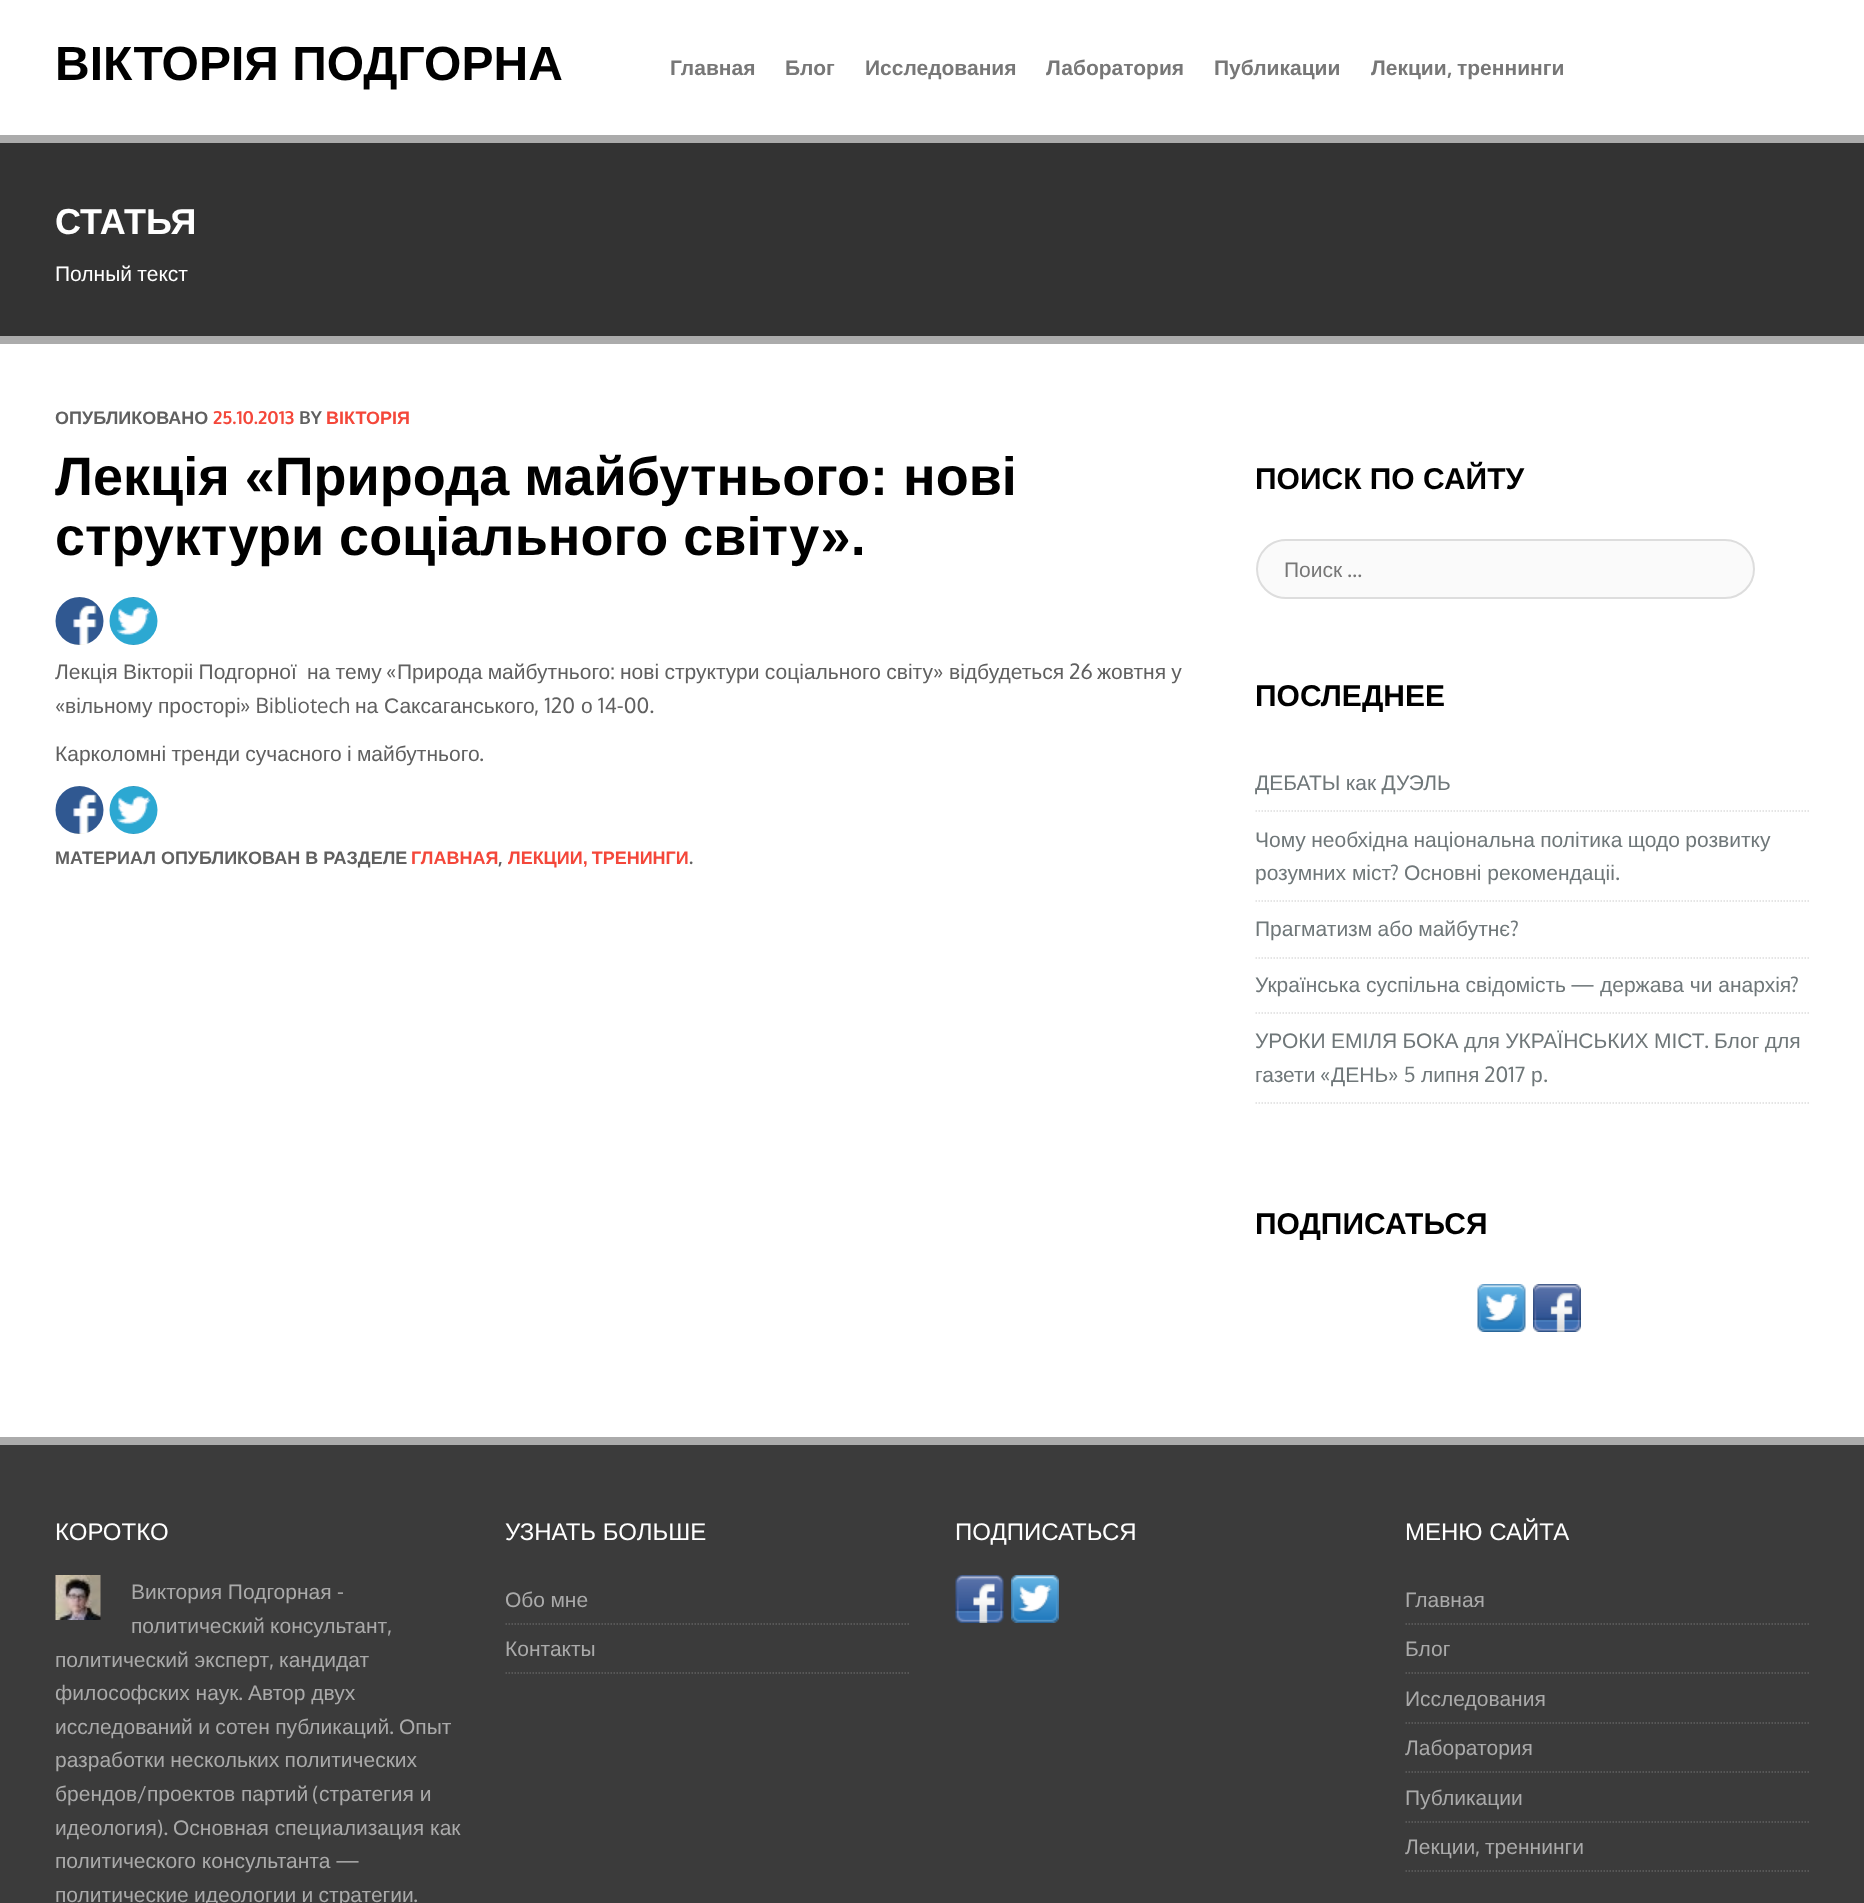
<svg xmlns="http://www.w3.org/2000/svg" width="1864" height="1903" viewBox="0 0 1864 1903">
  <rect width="100%" height="100%" fill="#ffffff"/>
  <text x="55" y="80" font-family="Liberation Sans" font-size="48" font-weight="bold" fill="#000000">ВІКТОРІЯ ПОДГОРНА</text>
  <text x="670" y="75" font-family="Liberation Sans" font-size="21" font-weight="bold" fill="#777777">Главная</text>
  <text x="785" y="75" font-family="Liberation Sans" font-size="21" font-weight="bold" fill="#777777">Блог</text>
  <text x="865" y="75" font-family="Liberation Sans" font-size="21" font-weight="bold" fill="#777777">Исследования</text>
  <text x="1046" y="75" font-family="Liberation Sans" font-size="21" font-weight="bold" fill="#777777">Лаборатория</text>
  <text x="1214" y="75" font-family="Liberation Sans" font-size="21" font-weight="bold" fill="#777777">Публикации</text>
  <text x="1371" y="75" font-family="Liberation Sans" font-size="21" font-weight="bold" fill="#777777">Лекции</text>
  <text x="1447" y="75" font-family="Oxygen" font-size="21" font-weight="bold" fill="#777777">,</text>
  <text x="1457" y="75" font-family="Liberation Sans" font-size="21" font-weight="bold" fill="#777777">треннинги</text>
  <rect x="0" y="143" width="1864" height="193" fill="#333333"/>
  <rect x="0" y="135" width="1864" height="8" fill="#ababab"/>
  <rect x="0" y="336" width="1864" height="8" fill="#ababab"/>
  <text x="55" y="234" font-family="Liberation Sans" font-size="36" font-weight="bold" fill="#ffffff">СТАТЬЯ</text>
  <text x="55" y="281" word-spacing="-0.5" font-family="Liberation Sans" font-size="21" fill="#ffffff">Полный текст</text>
  <text x="55" y="424" font-family="Liberation Sans" font-size="18" font-weight="bold" fill="#606060">ОПУБЛИКОВАНО</text>
  <text x="213" y="424" font-family="Oxygen" font-size="18" font-weight="bold" fill="#f4473a">25.10.2013</text>
  <text x="299" y="424" font-family="Oxygen" font-size="18" font-weight="bold" fill="#606060">BY</text>
  <text x="326" y="424" font-family="Liberation Sans" font-size="18" font-weight="bold" fill="#f4473a">ВІКТОРІЯ</text>
  <text x="55" y="495" font-family="Liberation Sans" font-size="54" font-weight="bold" fill="#000000">Лекція «Природа майбутнього: нові</text>
  <text x="55" y="555" font-family="Liberation Sans" font-size="54" font-weight="bold" fill="#000000">структури соціального світу».</text>
  <image x="55" y="597" width="49" height="48" href="img1.png"/>
  <image x="109" y="597" width="49" height="48" href="img2.png"/>
  <text x="55" y="679" word-spacing="-0.5" font-family="Liberation Sans" font-size="21" fill="#606060">Лекція Вікторіі Подгорної</text>
  <text x="307" y="679" word-spacing="-0.5" font-family="Liberation Sans" font-size="21" fill="#606060">на тему</text>
  <text x="386" y="679" font-family="Oxygen" font-size="21" fill="#606060">«</text>
  <text x="397" y="679" word-spacing="-0.5" font-family="Liberation Sans" font-size="21" fill="#606060">Природа майбутнього</text>
  <text x="610" y="679" font-family="Oxygen" font-size="21" fill="#606060">:</text>
  <text x="620" y="679" word-spacing="-0.5" font-family="Liberation Sans" font-size="21" fill="#606060">нові структури соціального світу</text>
  <text x="933" y="679" font-family="Oxygen" font-size="21" fill="#606060">»</text>
  <text x="949" y="679" font-family="Liberation Sans" font-size="21" fill="#606060">відбудеться</text>
  <text x="1069" y="679" font-family="Oxygen" font-size="21" fill="#606060">26</text>
  <text x="1097" y="679" word-spacing="-0.5" font-family="Liberation Sans" font-size="21" fill="#606060">жовтня у</text>
  <text x="55" y="713" font-family="Oxygen" font-size="21" fill="#606060">«</text>
  <text x="65" y="713" font-family="Liberation Sans" font-size="21" fill="#606060">вільному</text>
  <text x="158" y="713" font-family="Liberation Sans" font-size="21" fill="#606060">просторі</text>
  <text x="240" y="713" font-family="Oxygen" font-size="21" fill="#606060">» Bibliotech</text>
  <text x="355" y="713" font-family="Liberation Sans" font-size="21" fill="#606060">на</text>
  <text x="384" y="713" font-family="Liberation Sans" font-size="21" fill="#606060">Саксаганського</text>
  <text x="534" y="713" font-family="Oxygen" font-size="21" fill="#606060">, 120</text>
  <text x="581" y="713" font-family="Liberation Sans" font-size="21" fill="#606060">о</text>
  <text x="598" y="713" font-family="Oxygen" font-size="21" fill="#606060">14-00.</text>
  <text x="55" y="761" word-spacing="-0.5" font-family="Liberation Sans" font-size="21" fill="#606060">Карколомні тренди сучасного і майбутнього</text>
  <text x="479" y="761" font-family="Oxygen" font-size="21" fill="#606060">.</text>
  <image x="55" y="786" width="49" height="48" href="img1.png"/>
  <image x="109" y="786" width="49" height="48" href="img2.png"/>
  <text x="55" y="864" font-family="Liberation Sans" font-size="18" font-weight="bold" fill="#606060">МАТЕРИАЛ ОПУБЛИКОВАН В РАЗДЕЛЕ</text>
  <text x="411" y="864" font-family="Liberation Sans" font-size="18" font-weight="bold" fill="#f4473a">ГЛАВНАЯ</text>
  <text x="498" y="864" font-family="Oxygen" font-size="18" font-weight="bold" fill="#606060">,</text>
  <text x="508" y="864" word-spacing="-1" font-family="Liberation Sans" font-size="18" font-weight="bold" fill="#f4473a">ЛЕКЦИИ, ТРЕНИНГИ</text>
  <text x="689" y="864" font-family="Oxygen" font-size="18" font-weight="bold" fill="#606060">.</text>
  <text x="1255" y="489" font-family="Liberation Sans" font-size="30" font-weight="bold" fill="#000000">ПОИСК ПО САЙТУ</text>
  <rect x="1257" y="540" width="497" height="58" rx="29" fill="#fafafa" stroke="#dddddd" stroke-width="2"/>
  <text x="1284" y="577" font-family="Liberation Sans" font-size="21" fill="#777777">Поиск</text>
  <text x="1347" y="577" font-family="Oxygen" font-size="21" fill="#777777">…</text>
  <text x="1255" y="706" font-family="Liberation Sans" font-size="30" font-weight="bold" fill="#000000">ПОСЛЕДНЕЕ</text>
  <path d="M1255.5 811H1810.5" fill="none" stroke="#dddddd" stroke-width="1.5" stroke-dasharray="1.5 1.5"/>
  <text x="1255" y="790" word-spacing="-0.5" font-family="Liberation Sans" font-size="21" fill="#6f7779">ДЕБАТЫ как ДУЭЛЬ</text>
  <path d="M1255.5 901H1810.5" fill="none" stroke="#dddddd" stroke-width="1.5" stroke-dasharray="1.5 1.5"/>
  <text x="1255" y="847" word-spacing="-0.5" font-family="Liberation Sans" font-size="21" fill="#6f7779">Чому необхідна національна політика щодо розвитку</text>
  <text x="1255" y="880" font-family="Liberation Sans" font-size="21" fill="#6f7779">розумних міст</text>
  <text x="1390" y="880" font-family="Oxygen" font-size="21" fill="#6f7779">?</text>
  <text x="1404" y="880" font-family="Liberation Sans" font-size="21" fill="#6f7779">Основні рекомендаціі</text>
  <text x="1615" y="880" font-family="Oxygen" font-size="21" fill="#6f7779">.</text>
  <path d="M1255.5 958H1810.5" fill="none" stroke="#dddddd" stroke-width="1.5" stroke-dasharray="1.5 1.5"/>
  <text x="1255" y="936" word-spacing="-0.5" font-family="Liberation Sans" font-size="21" fill="#6f7779">Прагматизм або майбутнє</text>
  <text x="1510" y="936" font-family="Oxygen" font-size="21" fill="#6f7779">?</text>
  <path d="M1255.5 1013H1810.5" fill="none" stroke="#dddddd" stroke-width="1.5" stroke-dasharray="1.5 1.5"/>
  <text x="1255" y="992" font-family="Liberation Sans" font-size="21" fill="#6f7779">Українська суспільна свідомість</text>
  <text x="1570" y="992" font-family="Oxygen" font-size="21" fill="#6f7779">—</text>
  <text x="1600" y="992" font-family="Liberation Sans" font-size="21" fill="#6f7779">держава чи анархія</text>
  <text x="1790" y="992" font-family="Oxygen" font-size="21" fill="#6f7779">?</text>
  <path d="M1255.5 1103H1810.5" fill="none" stroke="#dddddd" stroke-width="1.5" stroke-dasharray="1.5 1.5"/>
  <text x="1255" y="1048" word-spacing="-0.5" font-family="Liberation Sans" font-size="21" fill="#6f7779">УРОКИ ЕМІЛЯ БОКА для УКРАЇНСЬКИХ МІСТ</text>
  <text x="1704" y="1048" font-family="Oxygen" font-size="21" fill="#6f7779">.</text>
  <text x="1714" y="1048" word-spacing="-0.5" font-family="Liberation Sans" font-size="21" fill="#6f7779">Блог для</text>
  <text x="1255" y="1082" font-family="Liberation Sans" font-size="21" fill="#6f7779">газети</text>
  <text x="1320" y="1082" font-family="Oxygen" font-size="21" fill="#6f7779">«</text>
  <text x="1331" y="1082" font-family="Liberation Sans" font-size="21" fill="#6f7779">ДЕНЬ</text>
  <text x="1388" y="1082" font-family="Oxygen" font-size="21" fill="#6f7779">» 5</text>
  <text x="1421" y="1082" font-family="Liberation Sans" font-size="21" fill="#6f7779">липня</text>
  <text x="1484" y="1082" font-family="Oxygen" font-size="21" fill="#6f7779">2017</text>
  <text x="1531" y="1082" font-family="Liberation Sans" font-size="21" fill="#6f7779">р</text>
  <text x="1543" y="1082" font-family="Oxygen" font-size="21" fill="#6f7779">.</text>
  <text x="1255" y="1234" font-family="Liberation Sans" font-size="30" font-weight="bold" fill="#000000">ПОДПИСАТЬСЯ</text>
  <image x="1477" y="1284" width="49" height="48" href="img3.png"/>
  <image x="1533" y="1284" width="48" height="48" href="img4.png"/>
  <rect x="0" y="1445" width="1864" height="458" fill="#3b3b3b"/>
  <rect x="0" y="1437" width="1864" height="8" fill="#ababab"/>
  <text x="55" y="1540" font-family="Liberation Sans" font-size="24" fill="#ffffff">КОРОТКО</text>
  <image x="55" y="1575" width="46" height="45" href="img5.png"/>
  <text x="131" y="1599" font-family="Liberation Sans" font-size="21" fill="#aaaaaa">Виктория Подгорная</text>
  <text x="337" y="1599" font-family="Oxygen" font-size="21" fill="#aaaaaa">-</text>
  <text x="131" y="1633" word-spacing="-0.5" font-family="Liberation Sans" font-size="21" fill="#aaaaaa">политический консультант</text>
  <text x="387" y="1633" font-family="Oxygen" font-size="21" fill="#aaaaaa">,</text>
  <text x="55" y="1667" font-family="Liberation Sans" font-size="21" fill="#aaaaaa">политический эксперт</text>
  <text x="269" y="1667" font-family="Oxygen" font-size="21" fill="#aaaaaa">,</text>
  <text x="279" y="1667" font-family="Liberation Sans" font-size="21" fill="#aaaaaa">кандидат</text>
  <text x="55" y="1700" font-family="Liberation Sans" font-size="21" fill="#aaaaaa">философских наук</text>
  <text x="238" y="1700" font-family="Oxygen" font-size="21" fill="#aaaaaa">.</text>
  <text x="248" y="1700" font-family="Liberation Sans" font-size="21" fill="#aaaaaa">Автор двух</text>
  <text x="55" y="1734" word-spacing="-0.5" font-family="Liberation Sans" font-size="21" fill="#aaaaaa">исследований и сотен публикаций</text>
  <text x="389" y="1734" font-family="Oxygen" font-size="21" fill="#aaaaaa">.</text>
  <text x="399" y="1734" font-family="Liberation Sans" font-size="21" fill="#aaaaaa">Опыт</text>
  <text x="55" y="1767" word-spacing="-0.5" font-family="Liberation Sans" font-size="21" fill="#aaaaaa">разработки нескольких политических</text>
  <text x="55" y="1801" font-family="Liberation Sans" font-size="21" fill="#aaaaaa">брендов</text>
  <text x="137" y="1801" font-family="Oxygen" font-size="21" fill="#aaaaaa">/</text>
  <text x="147" y="1801" font-family="Liberation Sans" font-size="21" fill="#aaaaaa">проектов партий</text>
  <text x="312" y="1801" font-family="Oxygen" font-size="21" fill="#aaaaaa">(</text>
  <text x="319" y="1801" font-family="Liberation Sans" font-size="21" fill="#aaaaaa">стратегия и</text>
  <text x="55" y="1835" font-family="Liberation Sans" font-size="21" fill="#aaaaaa">идеология</text>
  <text x="157" y="1835" font-family="Oxygen" font-size="21" fill="#aaaaaa">).</text>
  <text x="173" y="1835" font-family="Liberation Sans" font-size="21" fill="#aaaaaa">Основная специализация как</text>
  <text x="55" y="1868" font-family="Liberation Sans" font-size="21" fill="#aaaaaa">политического консультанта</text>
  <text x="335" y="1868" font-family="Oxygen" font-size="21" fill="#aaaaaa">—</text>
  <text x="55" y="1902" word-spacing="-0.5" font-family="Liberation Sans" font-size="21" fill="#aaaaaa">политические идеологии и стратегии</text>
  <text x="413" y="1902" font-family="Oxygen" font-size="21" fill="#aaaaaa">.</text>
  <text x="505" y="1540" font-family="Liberation Sans" font-size="24" fill="#ffffff">УЗНАТЬ БОЛЬШЕ</text>
  <path d="M505.5 1624H910.5" fill="none" stroke="#626262" stroke-width="1.5" stroke-dasharray="1.5 1.5"/>
  <text x="505" y="1607" word-spacing="-0.5" font-family="Liberation Sans" font-size="21" fill="#aaaaaa">Обо мне</text>
  <path d="M505.5 1673H910.5" fill="none" stroke="#626262" stroke-width="1.5" stroke-dasharray="1.5 1.5"/>
  <text x="505" y="1656" font-family="Liberation Sans" font-size="21" fill="#aaaaaa">Контакты</text>
  <text x="955" y="1540" font-family="Liberation Sans" font-size="24" fill="#ffffff">ПОДПИСАТЬСЯ</text>
  <image x="955" y="1575" width="49" height="48" href="img6.png"/>
  <image x="1011" y="1575" width="48" height="48" href="img7.png"/>
  <text x="1405" y="1540" font-family="Liberation Sans" font-size="24" fill="#ffffff">МЕНЮ САЙТА</text>
  <path d="M1405.5 1624H1810.5" fill="none" stroke="#626262" stroke-width="1.5" stroke-dasharray="1.5 1.5"/>
  <text x="1405" y="1607" font-family="Liberation Sans" font-size="21" fill="#aaaaaa">Главная</text>
  <path d="M1405.5 1673H1810.5" fill="none" stroke="#626262" stroke-width="1.5" stroke-dasharray="1.5 1.5"/>
  <text x="1405" y="1656" font-family="Liberation Sans" font-size="21" fill="#aaaaaa">Блог</text>
  <path d="M1405.5 1723H1810.5" fill="none" stroke="#626262" stroke-width="1.5" stroke-dasharray="1.5 1.5"/>
  <text x="1405" y="1706" font-family="Liberation Sans" font-size="21" fill="#aaaaaa">Исследования</text>
  <path d="M1405.5 1772H1810.5" fill="none" stroke="#626262" stroke-width="1.5" stroke-dasharray="1.5 1.5"/>
  <text x="1405" y="1755" font-family="Liberation Sans" font-size="21" fill="#aaaaaa">Лаборатория</text>
  <path d="M1405.5 1822H1810.5" fill="none" stroke="#626262" stroke-width="1.5" stroke-dasharray="1.5 1.5"/>
  <text x="1405" y="1805" font-family="Liberation Sans" font-size="21" fill="#aaaaaa">Публикации</text>
  <path d="M1405.5 1871H1810.5" fill="none" stroke="#626262" stroke-width="1.5" stroke-dasharray="1.5 1.5"/>
  <text x="1405" y="1854" font-family="Liberation Sans" font-size="21" fill="#aaaaaa">Лекции</text>
  <text x="1475" y="1854" font-family="Oxygen" font-size="21" fill="#aaaaaa">,</text>
  <text x="1485" y="1854" font-family="Liberation Sans" font-size="21" fill="#aaaaaa">треннинги</text>
</svg>
